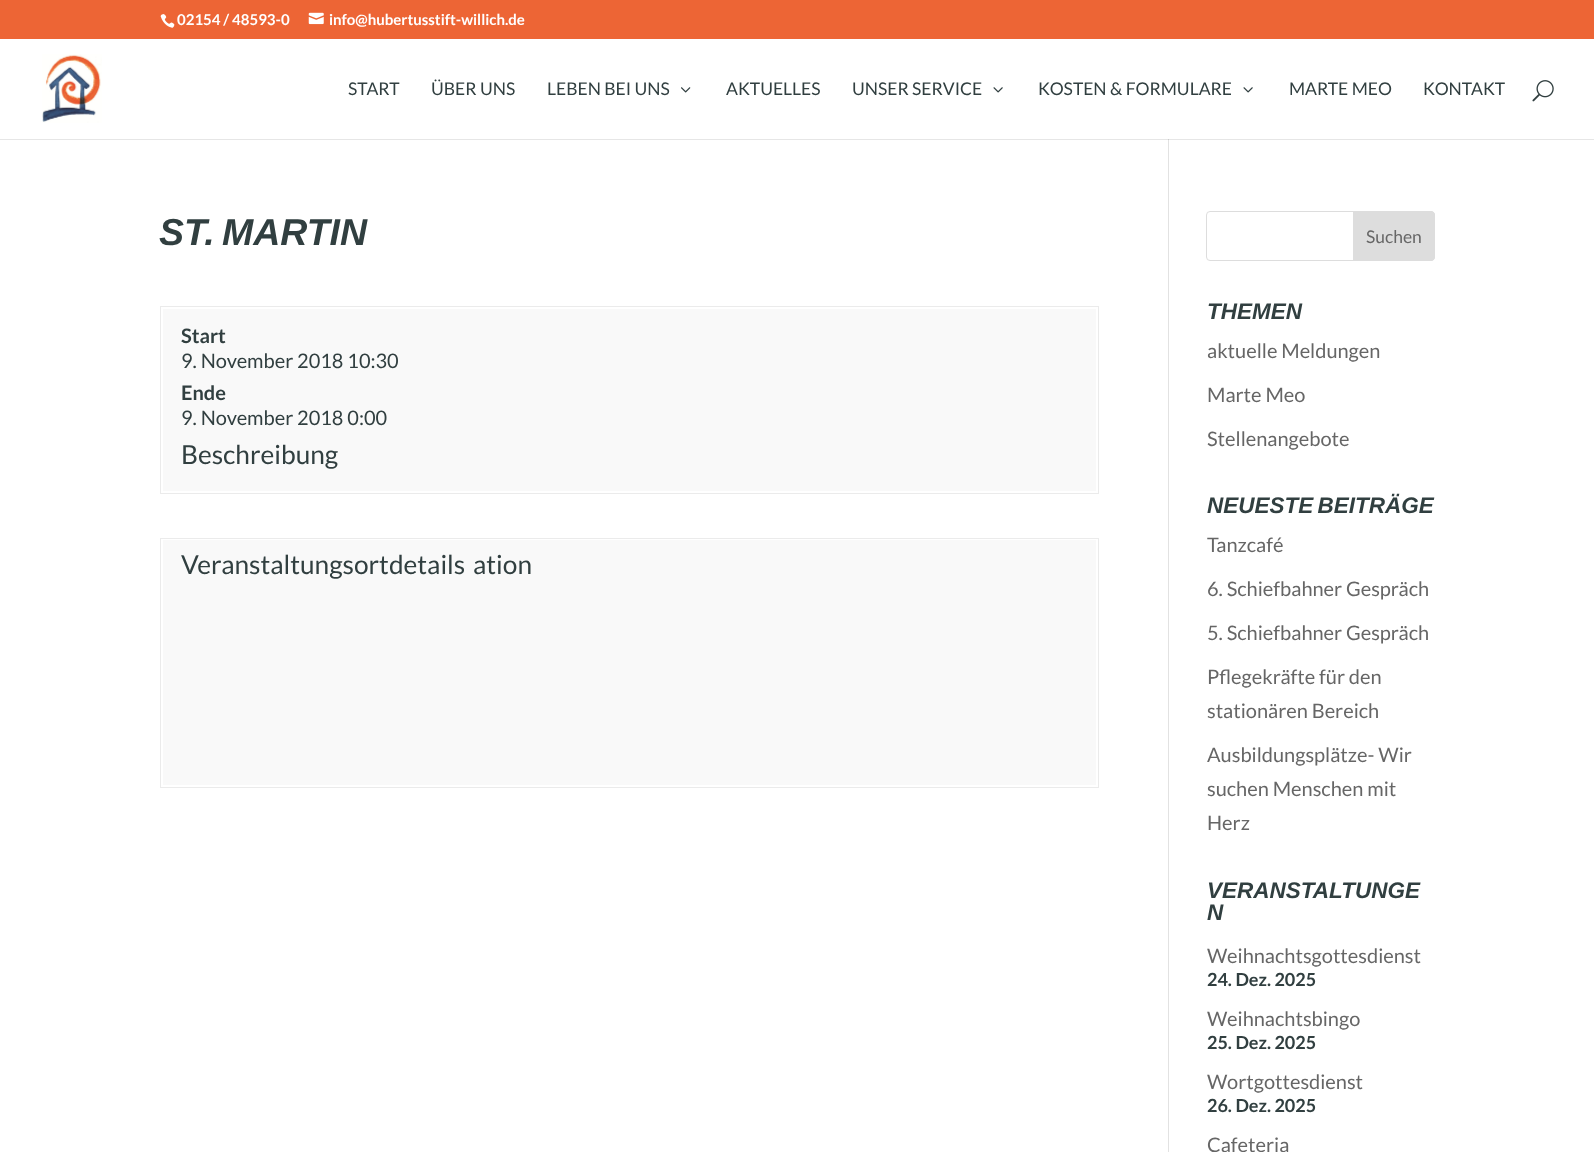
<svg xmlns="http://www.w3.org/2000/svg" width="1594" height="1152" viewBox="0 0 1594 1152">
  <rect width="100%" height="100%" fill="#ffffff"/>
  <rect x="0" y="139" width="1594" height="1" fill="#e6e6e6"/>
  <rect x="0" y="0" width="1594" height="39" fill="#ed6535"/>
  <image x="160" y="14" width="15" height="14" href="img1.png"/>
  <text x="177" y="25" font-family="Lato" font-size="15" font-weight="bold" fill="#ffffff">02154 / 48593-0</text>
  <image x="308" y="12" width="16" height="13" href="img2.png"/>
  <text x="329" y="25" font-family="Lato" font-size="15" font-weight="bold" fill="#ffffff">info@hubertusstift-willich.de</text>
  <image x="42" y="54" width="60" height="69" href="img3.png"/>
  <text x="348" y="95" font-family="Lato" font-size="17.5" fill="#313f40">START</text>
  <text x="431" y="95" font-family="Lato" font-size="17.5" fill="#313f40">ÜBER UNS</text>
  <text x="547" y="95" font-family="Lato" font-size="17.5" fill="#313f40">LEBEN BEI UNS</text>
  <image x="681" y="87" width="10" height="6" href="img4.png"/>
  <text x="726" y="95" font-family="Lato" font-size="17.5" fill="#313f40">AKTUELLES</text>
  <text x="852" y="95" font-family="Lato" font-size="17.5" fill="#313f40">UNSER SERVICE</text>
  <image x="993" y="87" width="10" height="6" href="img5.png"/>
  <text x="1038" y="95" font-family="Lato" font-size="17.5" fill="#313f40">KOSTEN &amp; FORMULARE</text>
  <image x="1243" y="87" width="10" height="6" href="img5.png"/>
  <text x="1289" y="95" font-family="Lato" font-size="17.5" fill="#313f40">MARTE MEO</text>
  <text x="1423" y="95" font-family="Lato" font-size="17.5" fill="#313f40">KONTAKT</text>
  <image x="1532" y="80" width="22" height="22" href="img6.png"/>
  <rect x="1168" y="139" width="1" height="1013" fill="#e2e2e2"/>
  <rect x="1168" y="139" width="1" height="1" fill="#cbcbcb"/>
  <text x="159" y="245" word-spacing="-3" font-family="Liberation Sans" font-size="37.5" font-weight="bold" font-style="italic" fill="#313f40">ST. MARTIN</text>
  <rect x="160.5" y="306.5" width="938" height="187" fill="none" stroke="#ebebeb"/>
  <rect x="163" y="309" width="933" height="182" fill="#f9f9f9"/>
  <text x="181" y="343" font-family="Lato" font-size="20" font-weight="bold" fill="#313f40">Start</text>
  <text x="181" y="368" font-family="Lato" font-size="20" fill="#313f40">9. November 2018 10:30</text>
  <text x="181" y="400" font-family="Lato" font-size="20" font-weight="bold" fill="#313f40">Ende</text>
  <text x="181" y="425" font-family="Lato" font-size="20" fill="#313f40">9. November 2018 0:00</text>
  <text x="181" y="464" font-family="Lato" font-size="26.25" fill="#313f40">Beschreibung</text>
  <rect x="160.5" y="538.5" width="938" height="249" fill="none" stroke="#ebebeb"/>
  <rect x="163" y="540" width="933" height="245" fill="#f9f9f9"/>
  <text x="181" y="574" font-family="Lato" font-size="26.25" fill="#313f40">Veranstaltungsortdetails</text>
  <text x="473" y="574" font-family="Lato" font-size="26.25" fill="#313f40">ation</text>
  <rect x="1206.5" y="211.5" width="228" height="49" rx="3.5" fill="none" stroke="#dddddd"/>
  <path d="M1353.5 211.5H1431C1433 211.5 1434.5 213 1434.5 215V257C1434.5 259 1433 260.5 1431 260.5H1353.5Z" fill="#dddddd" stroke="#dddddd"/>
  <text x="1366" y="243" font-family="Lato" font-size="17.5" fill="#666666">Suchen</text>
  <text x="1207" y="319" font-family="Liberation Sans" font-size="22.5" font-weight="bold" font-style="italic" fill="#313f40">THEMEN</text>
  <text x="1207" y="358" font-family="Lato" font-size="20" fill="#666666">aktuelle Meldungen</text>
  <text x="1207" y="402" font-family="Lato" font-size="20" fill="#666666">Marte Meo</text>
  <text x="1207" y="446" font-family="Lato" font-size="20" fill="#666666">Stellenangebote</text>
  <text x="1207" y="513" word-spacing="-2" font-family="Liberation Sans" font-size="22.5" font-weight="bold" font-style="italic" fill="#313f40">NEUESTE BEITRÄGE</text>
  <text x="1207" y="552" font-family="Lato" font-size="20" fill="#666666">Tanzcafé</text>
  <text x="1207" y="596" font-family="Lato" font-size="20" fill="#666666">6. Schiefbahner Gespräch</text>
  <text x="1207" y="640" font-family="Lato" font-size="20" fill="#666666">5. Schiefbahner Gespräch</text>
  <text x="1207" y="684" font-family="Lato" font-size="20" fill="#666666">Pflegekräfte für den</text>
  <text x="1207" y="718" font-family="Lato" font-size="20" fill="#666666">stationären Bereich</text>
  <text x="1207" y="762" font-family="Lato" font-size="20" fill="#666666">Ausbildungsplätze- Wir</text>
  <text x="1207" y="796" font-family="Lato" font-size="20" fill="#666666">suchen Menschen mit</text>
  <text x="1207" y="830" font-family="Lato" font-size="20" fill="#666666">Herz</text>
  <text x="1207" y="898" font-family="Liberation Sans" font-size="22.5" font-weight="bold" font-style="italic" fill="#313f40">VERANSTALTUNGE</text>
  <text x="1207" y="920" font-family="Liberation Sans" font-size="22.5" font-weight="bold" font-style="italic" fill="#313f40">N</text>
  <text x="1207" y="963" font-family="Lato" font-size="20" fill="#666666">Weihnachtsgottesdienst</text>
  <text x="1207" y="986" font-family="Lato" font-size="18" font-weight="bold" fill="#313f40">24. Dez. 2025</text>
  <text x="1207" y="1026" font-family="Lato" font-size="20" fill="#666666">Weihnachtsbingo</text>
  <text x="1207" y="1049" font-family="Lato" font-size="18" font-weight="bold" fill="#313f40">25. Dez. 2025</text>
  <text x="1207" y="1089" font-family="Lato" font-size="20" fill="#666666">Wortgottesdienst</text>
  <text x="1207" y="1112" font-family="Lato" font-size="18" font-weight="bold" fill="#313f40">26. Dez. 2025</text>
  <text x="1207" y="1152" font-family="Lato" font-size="20" fill="#666666">Cafeteria</text>
</svg>
